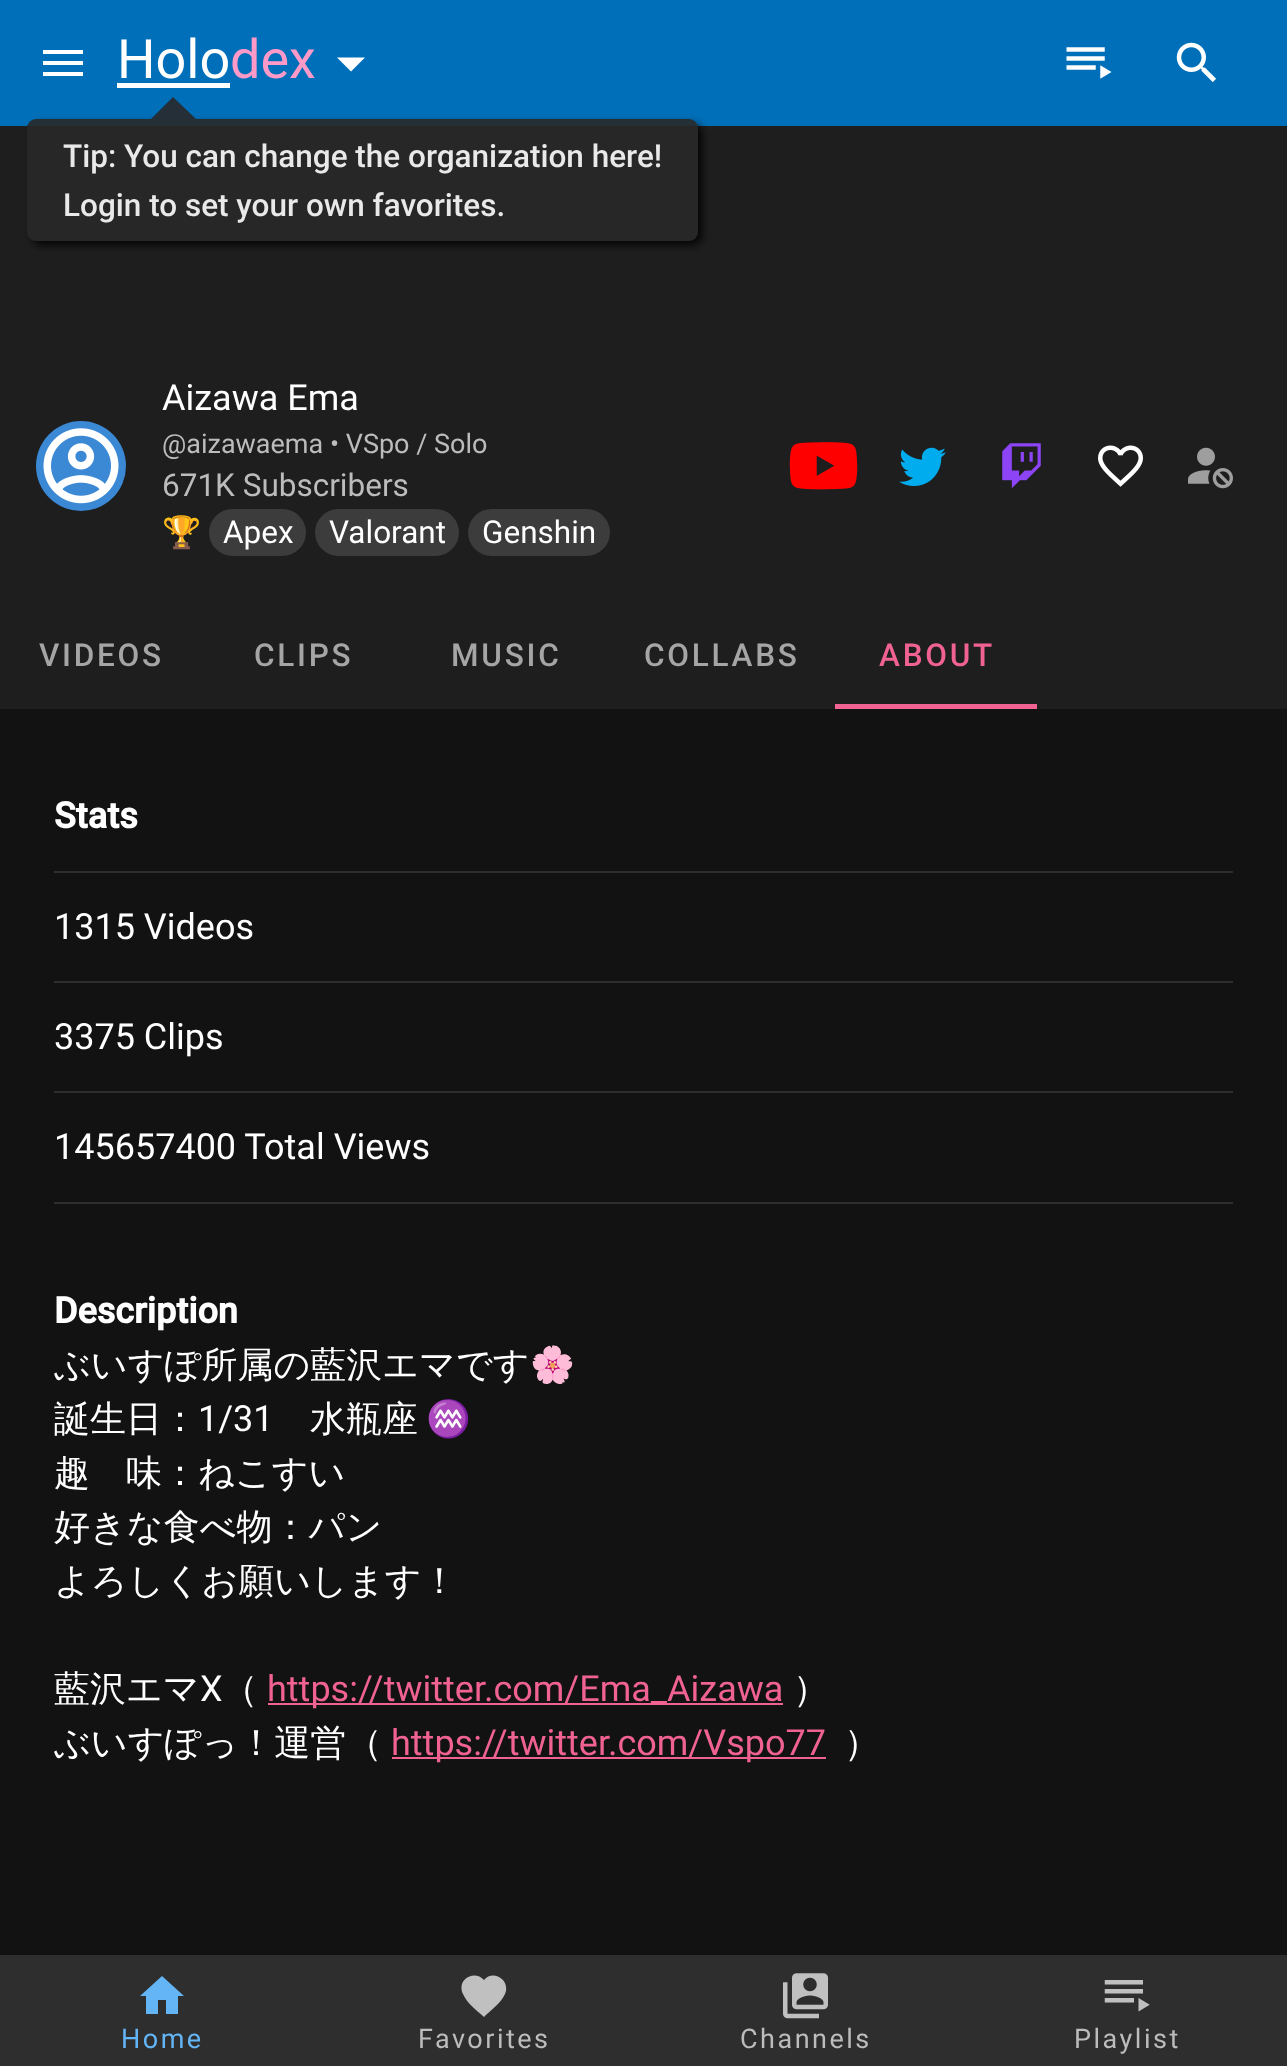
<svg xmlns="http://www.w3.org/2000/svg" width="1287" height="2066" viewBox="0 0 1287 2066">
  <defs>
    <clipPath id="clip1"><path d="M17 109H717V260H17ZM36 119H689C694 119 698 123 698 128V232C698 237 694 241 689 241H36C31 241 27 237 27 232V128C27 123 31 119 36 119Z" clip-rule="evenodd"/></clipPath>
    <filter id="blur1" x="-50%" y="-200%" width="200%" height="500%"><feGaussianBlur stdDeviation="4.5"/></filter>
  </defs>
  <rect width="100%" height="100%" fill="#121212"/>
  <rect x="0" y="0" width="1287" height="126" fill="#006fb9"/>
  <path d="M43 50H83V54H43V50M43 61H83V65H43V61M43 72H83V76H43Z" fill="#ffffff"/>
  <text x="117" y="78" font-family="Roboto" font-size="54" fill="#ffffff">Holo</text>
  <rect x="117" y="83" width="113" height="5" fill="#ffffff"/>
  <text x="230" y="78" font-family="Roboto" font-size="54" fill="#ff9ac8">dex</text>
  <path d="M337 57.5L351 71.5L365 57.5Z" fill="#ffffff"/>
  <image x="1066" y="47" width="46" height="32" href="img1.png"/>
  <image x="1176" y="42" width="40" height="40" href="img2.png"/>
  <rect x="0" y="1955" width="1287" height="111" fill="#2e2e2e"/>
  <path d="M158 2014V2000H166V2014H178V1996H184L162 1976L140 1996H146V2014Z" fill="#64b5f6"/>
  <text x="121" y="2048" font-family="Roboto" font-size="27" letter-spacing="2.5" fill="#64b5f6">Home</text>
  <path d="M484 2017C476 2010 467 2003 463 1994C456 1980 474 1969 484 1980C493 1969 511 1980 505 1994C501 2003 491 2010 484 2017Z" fill="#c0c0c0"/>
  <text x="418" y="2048" font-family="Roboto" font-size="27" letter-spacing="2.5" fill="#bcbcbc">Favorites</text>
  <image x="783" y="1973" width="45" height="46" href="img3.png"/>
  <text x="740" y="2048" font-family="Roboto" font-size="27" letter-spacing="2.5" fill="#bcbcbc">Channels</text>
  <image x="1104" y="1980" width="46" height="32" href="img4.png"/>
  <text x="1074" y="2048" font-family="Roboto" font-size="27" letter-spacing="2.5" fill="#bcbcbc">Playlist</text>
  <rect x="0" y="126" width="1287" height="583" fill="#1e1e1e"/>
  <circle cx="81" cy="466" r="45" fill="#3b88d5"/>
  <image x="43" y="428" width="76" height="76" href="img5.png"/>
  <text x="162" y="410" font-family="Roboto" font-size="36" fill="#ffffff">Aizawa Ema</text>
  <text x="162" y="453" font-family="Roboto" font-size="27" fill="#bcbcbc">@aizawaema • VSpo / Solo</text>
  <text x="162" y="496" font-family="Roboto" font-size="31.5" fill="#bcbcbc">671K Subscribers</text>
  <text x="162" y="543" font-family="Noto Color Emoji" font-size="31.5" fill="#bcbcbc">🏆</text>
  <rect x="209" y="509" width="97" height="47" rx="23.5" fill="#3c3c3c"/>
  <text x="223" y="543" font-family="Roboto" font-size="31.5" fill="#ffffff">Apex</text>
  <rect x="315" y="509" width="144" height="47" rx="23.5" fill="#3c3c3c"/>
  <text x="329" y="543" font-family="Roboto" font-size="31.5" fill="#ffffff">Valorant</text>
  <rect x="468" y="509" width="142" height="47" rx="23.5" fill="#3c3c3c"/>
  <text x="482" y="543" font-family="Roboto" font-size="31.5" fill="#ffffff">Genshin</text>
  <image x="789" y="442" width="69" height="48" href="img6.png"/>
  <image x="899" y="447" width="47" height="39" href="img7.png"/>
  <image x="1002" y="443" width="39" height="46" href="img8.png"/>
  <image x="1098" y="445" width="45" height="42" href="img9.png"/>
  <image x="1188" y="447" width="45" height="42" href="img10.png"/>
  <text x="39" y="666" font-family="Roboto" font-size="31.5" font-weight="500" letter-spacing="2.75" fill="#a5a5a5">VIDEOS</text>
  <text x="254" y="666" font-family="Roboto" font-size="31.5" font-weight="500" letter-spacing="2.75" fill="#a5a5a5">CLIPS</text>
  <text x="451" y="666" font-family="Roboto" font-size="31.5" font-weight="500" letter-spacing="2.75" fill="#a5a5a5">MUSIC</text>
  <text x="644" y="666" font-family="Roboto" font-size="31.5" font-weight="500" letter-spacing="2.75" fill="#a5a5a5">COLLABS</text>
  <text x="879" y="666" font-family="Roboto" font-size="31.5" font-weight="500" letter-spacing="2.75" fill="#f06292">ABOUT</text>
  <rect x="835" y="704" width="202" height="5" fill="#f06292"/>
  <text x="54" y="828" font-family="Roboto" font-size="36" font-weight="bold" fill="#ffffff">Stats</text>
  <rect x="54" y="871" width="1179" height="2" fill="#2e2e2e"/>
  <text x="54" y="939" font-family="Roboto" font-size="36" fill="#ffffff">1315 Videos</text>
  <rect x="54" y="981" width="1179" height="2" fill="#2e2e2e"/>
  <text x="54" y="1049" font-family="Roboto" font-size="36" fill="#ffffff">3375 Clips</text>
  <rect x="54" y="1091" width="1179" height="2" fill="#2e2e2e"/>
  <text x="54" y="1159" font-family="Roboto" font-size="36" fill="#ffffff">145657400 Total Views</text>
  <rect x="54" y="1202" width="1179" height="2" fill="#2e2e2e"/>
  <text x="54" y="1323" font-family="Roboto" font-size="36" font-weight="bold" fill="#ffffff">Description</text>
  <text x="54" y="1377" font-family="WenQuanYi Zen Hei" font-size="36" font-weight="500" fill="#ffffff">ぶいすぽ所属の藍沢エマです</text>
  <text x="530" y="1377" font-family="Noto Color Emoji" font-size="36" fill="#ffffff">🌸</text>
  <text x="54" y="1431" font-family="WenQuanYi Zen Hei" font-size="36" font-weight="500" fill="#ffffff">誕生日：</text>
  <text x="198" y="1431" font-family="Roboto" font-size="36" fill="#ffffff">1/31</text>
  <text x="310" y="1431" font-family="WenQuanYi Zen Hei" font-size="36" font-weight="500" fill="#ffffff">水瓶座</text>
  <text x="426" y="1431" font-family="Noto Color Emoji" font-size="36" fill="#ffffff">♒</text>
  <text x="54" y="1485" font-family="WenQuanYi Zen Hei" font-size="36" font-weight="500" fill="#ffffff">趣　味：ねこすい</text>
  <text x="54" y="1539" font-family="WenQuanYi Zen Hei" font-size="36" font-weight="500" fill="#ffffff">好きな食べ物：パン</text>
  <text x="54" y="1593" font-family="WenQuanYi Zen Hei" font-size="36" font-weight="500" fill="#ffffff">よろしくお願いします！</text>
  <text x="54" y="1701" font-family="WenQuanYi Zen Hei" font-size="36" font-weight="500" fill="#ffffff">藍沢エマ</text>
  <text x="200" y="1701" font-family="Roboto" font-size="36" fill="#ffffff">X</text>
  <text x="222" y="1701" font-family="WenQuanYi Zen Hei" font-size="36" font-weight="500" fill="#ffffff">（</text>
  <rect x="268" y="1703" width="515" height="2" fill="#f06292"/>
  <text x="267" y="1701" font-family="Roboto" font-size="36" fill="#f06292">https://twitter.com/Ema_Aizawa</text>
  <text x="793" y="1701" font-family="WenQuanYi Zen Hei" font-size="36" font-weight="500" fill="#ffffff">）</text>
  <text x="54" y="1755" font-family="WenQuanYi Zen Hei" font-size="36" font-weight="500" fill="#ffffff">ぶいすぽっ！運営（</text>
  <rect x="392" y="1757" width="434" height="2" fill="#f06292"/>
  <text x="391" y="1755" font-family="Roboto" font-size="36" fill="#f06292">https://twitter.com/Vspo77</text>
  <text x="844" y="1755" font-family="WenQuanYi Zen Hei" font-size="36" font-weight="500" fill="#ffffff">）</text>
  <g clip-path="url(#clip1)">
    <rect x="32" y="124" width="670" height="121" rx="9" fill="#000000" fill-opacity="0.9" filter="url(#blur1)"/>
  </g>
  <rect x="27" y="119" width="671" height="122" rx="9" fill="#282828" fill-opacity="0.9"/>
  <path d="M196 119H151L173 97Z" fill="#242f37"/>
  <text x="63" y="167" font-family="Roboto" font-size="31.5" font-weight="500" fill="#e9e9e9">Tip: You can change the organization here!</text>
  <text x="63" y="216" font-family="Roboto" font-size="31.5" font-weight="500" fill="#e9e9e9">Login to set your own favorites.</text>
</svg>
